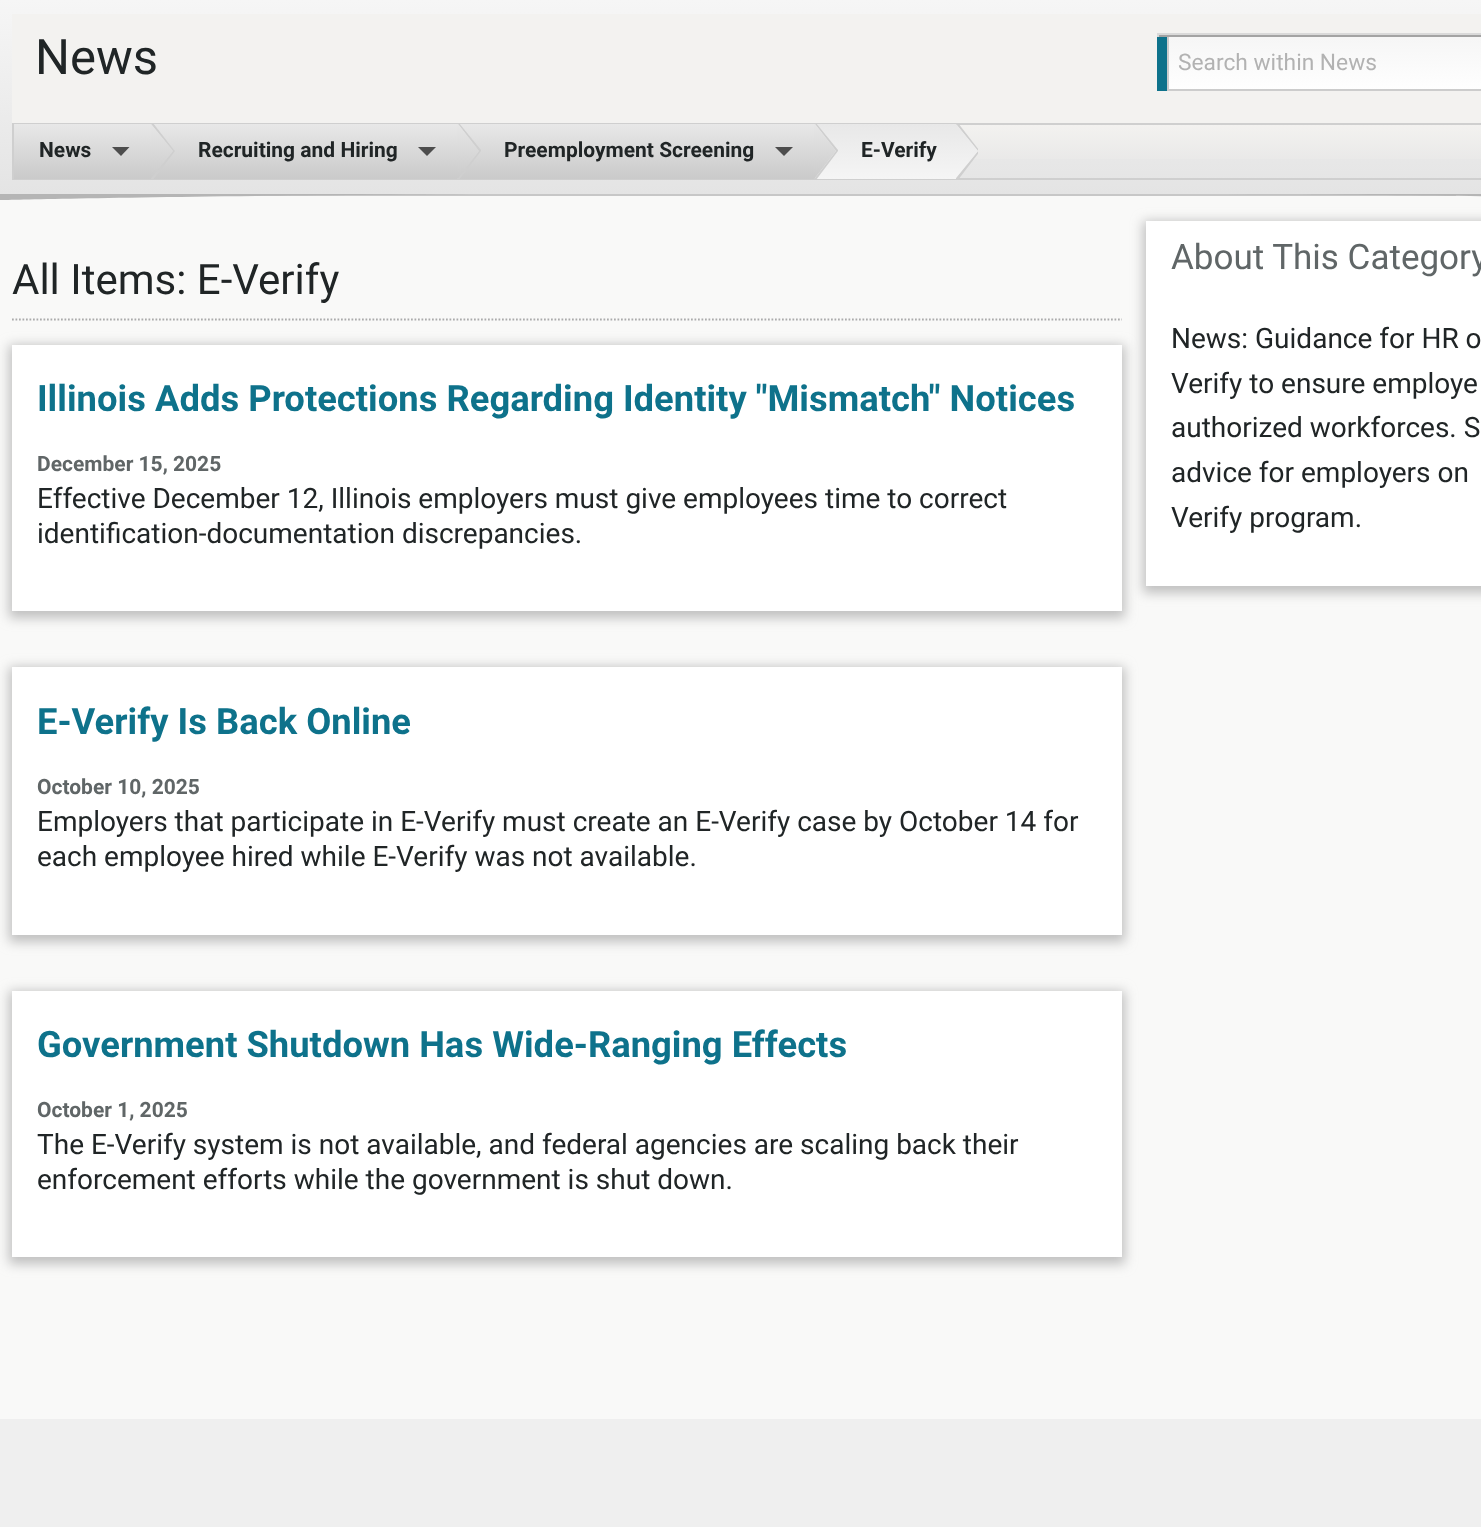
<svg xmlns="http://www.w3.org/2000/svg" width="1481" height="1527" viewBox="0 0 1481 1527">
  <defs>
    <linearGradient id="g1" gradientUnits="userSpaceOnUse" x1="851" y1="0" x2="851" y2="194"><stop offset="0" stop-color="#f6f6f6"/><stop offset="1" stop-color="#e4e4e4"/></linearGradient>
    <linearGradient id="g2" gradientUnits="userSpaceOnUse" x1="1423" y1="33" x2="1423" y2="91"><stop offset="0" stop-color="#f5f5f5"/><stop offset="1" stop-color="#ffffff"/></linearGradient>
    <linearGradient id="g3" gradientUnits="userSpaceOnUse" x1="851" y1="124" x2="851" y2="179"><stop offset="0" stop-color="#f3f2f0"/><stop offset="1" stop-color="#e4e4e4"/></linearGradient>
    <linearGradient id="g4" gradientUnits="userSpaceOnUse" x1="82" y1="124" x2="82" y2="179"><stop offset="0" stop-color="#e8e8e8"/><stop offset="1" stop-color="#cacaca"/></linearGradient>
    <linearGradient id="g5" gradientUnits="userSpaceOnUse" x1="304" y1="124" x2="304" y2="179"><stop offset="0" stop-color="#e8e8e8"/><stop offset="1" stop-color="#cacaca"/></linearGradient>
    <clipPath id="clip1"><rect x="151" y="124" width="24" height="55"/></clipPath>
    <linearGradient id="g6" gradientUnits="userSpaceOnUse" x1="113" y1="180" x2="113" y2="122"><stop offset="0" stop-color="#cacaca"/><stop offset="1" stop-color="#e8e8e8"/></linearGradient>
    <linearGradient id="g7" gradientUnits="userSpaceOnUse" x1="635" y1="124" x2="635" y2="179"><stop offset="0" stop-color="#e8e8e8"/><stop offset="1" stop-color="#cacaca"/></linearGradient>
    <clipPath id="clip2"><rect x="457" y="124" width="24" height="55"/></clipPath>
    <linearGradient id="g8" gradientUnits="userSpaceOnUse" x1="419" y1="180" x2="419" y2="122"><stop offset="0" stop-color="#cacaca"/><stop offset="1" stop-color="#e8e8e8"/></linearGradient>
    <linearGradient id="g9" gradientUnits="userSpaceOnUse" x1="885" y1="124" x2="885" y2="179"><stop offset="0" stop-color="#e8e8e8"/><stop offset="1" stop-color="#f5f5f5"/></linearGradient>
    <clipPath id="clip3"><rect x="814" y="124" width="24" height="55"/></clipPath>
    <linearGradient id="g10" gradientUnits="userSpaceOnUse" x1="776" y1="180" x2="776" y2="122"><stop offset="0" stop-color="#cacaca"/><stop offset="1" stop-color="#e8e8e8"/></linearGradient>
    <clipPath id="clip4"><rect x="956" y="124" width="22" height="55"/></clipPath>
    <linearGradient id="g11" gradientUnits="userSpaceOnUse" x1="942" y1="179" x2="942" y2="124"><stop offset="0" stop-color="#f5f5f5"/><stop offset="1" stop-color="#e8e8e8"/></linearGradient>
    <clipPath id="clip5"><rect x="0" y="194" width="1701" height="20"/></clipPath>
    <filter id="blur1" x="-50%" y="-200%" width="200%" height="500%"><feGaussianBlur stdDeviation="6"/></filter>
  </defs>
  <rect width="100%" height="100%" fill="#efefef"/>
  <rect x="0" y="196" width="1481" height="1223" fill="#f9f9f8"/>
  <rect x="0" y="0" width="1481" height="194" fill="url(#g1)"/>
  <rect x="253" y="194" width="1203" height="2" fill="#c7c7c7"/>
  <rect x="12" y="14" width="1469" height="109" fill="#f3f2f0"/>
  <text x="35" y="74" font-family="Roboto" font-size="49" fill="#202526">News</text>
  <rect x="1169" y="37" width="312" height="52" fill="url(#g2)"/>
  <rect x="1168" y="34" width="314" height="56" fill="none" stroke="#cccccc" stroke-width="2"/>
  <rect x="1157" y="33" width="324" height="2" fill="#d9d9d9"/>
  <rect x="1157" y="35" width="324" height="2" fill="#a3a3a3"/>
  <rect x="1157" y="33" width="2" height="4" fill="#d9d9d9"/>
  <rect x="1157" y="37" width="10" height="54" fill="#0e728b"/>
  <text x="1178" y="70" font-family="Roboto" font-size="22.75" fill="#b2b2b2">Search within News</text>
  <rect x="956" y="125" width="525" height="34" fill="url(#g3)"/>
  <rect x="13" y="124" width="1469" height="55" fill="none" stroke="#cfcfcf" stroke-width="2"/>
  <rect x="14" y="124" width="137" height="55" fill="url(#g4)"/>
  <text x="39" y="157" font-family="Roboto" font-size="21" font-weight="bold" fill="#202526">News</text>
  <path d="M112 147L121 156L129.5 147Z" fill="#4d4d4d"/>
  <rect x="151" y="124" width="306" height="55" fill="url(#g5)"/>
  <g clip-path="url(#clip1)">
    <path d="M152 123H153L174 150L175 151L153 180H151H150L149 178V124L150 123ZM151 178L173 151L151 124Z" fill="#cfcfcf" fill-rule="evenodd"/>
    <path d="M100 124H151L173 151L151 178H100Z" fill="url(#g6)" fill-rule="evenodd"/>
  </g>
  <text x="198" y="157" font-family="Roboto" font-size="21" font-weight="bold" fill="#202526">Recruiting and Hiring</text>
  <path d="M418 147L427 156L436 147Z" fill="#4d4d4d"/>
  <rect x="458" y="124" width="356" height="55" fill="url(#g7)"/>
  <g clip-path="url(#clip2)">
    <path d="M458 123H459L481 150V151L459 180H458H456V178V124V123ZM458 178L479 151L458 124Z" fill="#cfcfcf" fill-rule="evenodd"/>
    <path d="M406 124H458L479 151L458 178H406Z" fill="url(#g8)" fill-rule="evenodd"/>
  </g>
  <text x="504" y="157" font-family="Roboto" font-size="21" font-weight="bold" fill="#202526">Preemployment Screening</text>
  <path d="M775 147L784 156L793 147Z" fill="#4d4d4d"/>
  <rect x="815" y="124" width="141" height="55" fill="url(#g9)"/>
  <g clip-path="url(#clip3)">
    <path d="M815 123H816L838 150V151L816 180H815H813V178V124V123ZM815 178L836 151L815 124Z" fill="#cfcfcf" fill-rule="evenodd"/>
    <path d="M763 124H815L836 151L815 178H763Z" fill="url(#g10)" fill-rule="evenodd"/>
  </g>
  <text x="861" y="157" font-family="Roboto" font-size="21" font-weight="bold" fill="#202526">E-Verify</text>
  <g clip-path="url(#clip4)">
    <path d="M957 123H958L979 150L980 151L958 180H956H955L954 178V124L955 123ZM956 178L978 151L956 124Z" fill="#cfcfcf" fill-rule="evenodd"/>
    <path d="M905 124H956L978 151L956 178H905Z" fill="url(#g11)" fill-rule="evenodd"/>
  </g>
  <g clip-path="url(#clip5)">
    <path d="M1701 200V180H0V200C0 200 259 193 858 193C1457 193 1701 200 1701 200Z" fill="#b5b5b5" fill-rule="evenodd"/>
  </g>
  <path d="M12 319.5H1122" fill="none" stroke="#ababab" stroke-width="1.8" stroke-dasharray="1.75 1.75"/>
  <text x="12" y="294" font-family="Roboto" font-size="42" fill="#202526">All Items: E-Verify</text>
  <rect x="9" y="345" width="1116" height="273" fill="#bfbfbf" filter="url(#blur1)"/>
  <rect x="12" y="345" width="1110" height="266" fill="#ffffff"/>
  <text x="37" y="411" font-family="Roboto" font-size="36.4" font-weight="bold" fill="#0e728b">Illinois Adds Protections Regarding Identity "Mismatch" Notices</text>
  <text x="37" y="471" font-family="Roboto" font-size="21" font-weight="bold" fill="#606667">December 15, 2025</text>
  <text x="37" y="508" font-family="Roboto" font-size="28" fill="#202526">Effective December 12, Illinois employers must give employees time to correct</text>
  <text x="37" y="543" font-family="Roboto" font-size="28" fill="#202526">identification-documentation discrepancies.</text>
  <rect x="9" y="667" width="1116" height="275" fill="#bfbfbf" filter="url(#blur1)"/>
  <rect x="12" y="667" width="1110" height="268" fill="#ffffff"/>
  <text x="37" y="734" font-family="Roboto" font-size="36.4" font-weight="bold" fill="#0e728b">E-Verify Is Back Online</text>
  <text x="37" y="794" font-family="Roboto" font-size="21" font-weight="bold" fill="#606667">October 10, 2025</text>
  <text x="37" y="831" font-family="Roboto" font-size="28" fill="#202526">Employers that participate in E-Verify must create an E-Verify case by October 14 for</text>
  <text x="37" y="866" font-family="Roboto" font-size="28" fill="#202526">each employee hired while E-Verify was not available.</text>
  <rect x="9" y="991" width="1116" height="273" fill="#bfbfbf" filter="url(#blur1)"/>
  <rect x="12" y="991" width="1110" height="266" fill="#ffffff"/>
  <text x="37" y="1057" font-family="Roboto" font-size="36.4" font-weight="bold" fill="#0e728b">Government Shutdown Has Wide-Ranging Effects</text>
  <text x="37" y="1117" font-family="Roboto" font-size="21" font-weight="bold" fill="#606667">October 1, 2025</text>
  <text x="37" y="1154" font-family="Roboto" font-size="28" fill="#202526">The E-Verify system is not available, and federal agencies are scaling back their</text>
  <text x="37" y="1189" font-family="Roboto" font-size="28" fill="#202526">enforcement efforts while the government is shut down.</text>
  <rect x="1143" y="221" width="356" height="372" fill="#bfbfbf" filter="url(#blur1)"/>
  <rect x="1146" y="221" width="335" height="365" fill="#ffffff"/>
  <text x="1171" y="269" font-family="Roboto" font-size="35" fill="#606667">About This Category</text>
  <text x="1171" y="348" font-family="Roboto" font-size="28" fill="#202526">News: Guidance for HR o</text>
  <text x="1171" y="393" font-family="Roboto" font-size="28" fill="#202526">Verify to ensure employe</text>
  <text x="1171" y="437" font-family="Roboto" font-size="28" fill="#202526">authorized workforces. S</text>
  <text x="1171" y="482" font-family="Roboto" font-size="28" fill="#202526">advice for employers on</text>
  <text x="1171" y="527" font-family="Roboto" font-size="28" fill="#202526">Verify program.</text>
</svg>
